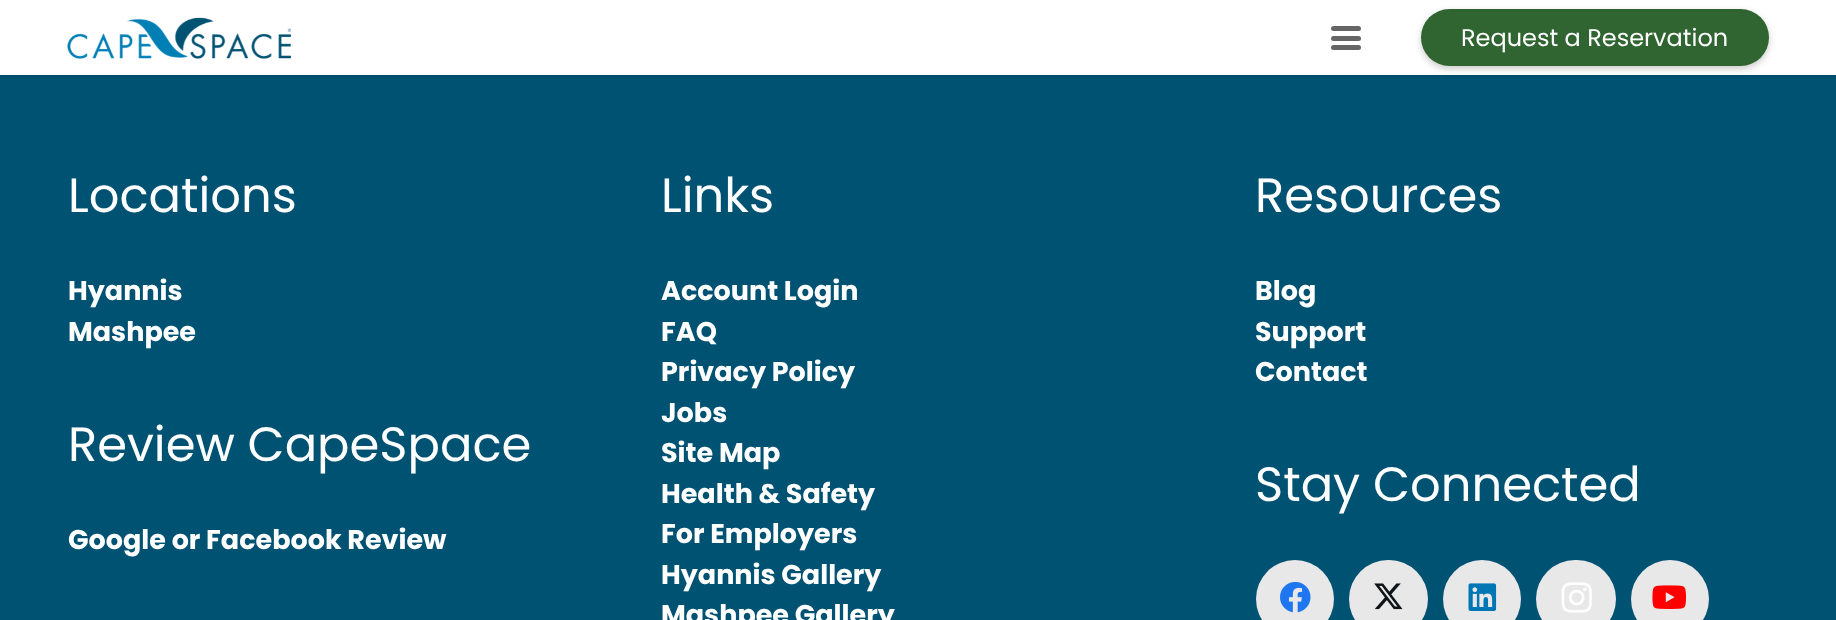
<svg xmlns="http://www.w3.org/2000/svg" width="1836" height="620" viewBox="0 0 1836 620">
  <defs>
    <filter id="blur1" x="-50%" y="-200%" width="200%" height="500%"><feGaussianBlur stdDeviation="3.5"/></filter>
  </defs>
  <rect width="100%" height="100%" fill="#005273"/>
  <rect x="0" y="75" width="1836" height="2" fill="#004b6a"/>
  <rect x="0" y="0" width="1836" height="75" fill="#ffffff"/>
  <image x="67" y="17" width="224" height="42" href="img1.png"/>
  <rect x="1331" y="36" width="30" height="5" rx="2.5" fill="#666666"/>
  <rect x="1331" y="26" width="30" height="5" rx="2.5" fill="#666666"/>
  <rect x="1331" y="45" width="30" height="5" rx="2.5" fill="#666666"/>
  <rect x="1421" y="12" width="348" height="57" rx="28.5" fill="#000000" fill-opacity="0.2" filter="url(#blur1)"/>
  <rect x="1421" y="9" width="348" height="57" rx="28.5" fill="#306430"/>
  <text x="1461" y="46" font-family="Poppins" font-size="24" fill="#ffffff">Request a Reservation</text>
  <text x="68" y="212" font-family="Poppins" font-size="48" fill="#ffffff">Locations</text>
  <text x="68" y="300" font-family="Poppins" font-size="27" font-weight="bold" fill="#ffffff">Hyannis</text>
  <text x="68" y="341" font-family="Poppins" font-size="27" font-weight="bold" fill="#ffffff">Mashpee</text>
  <text x="68" y="461" font-family="Poppins" font-size="48" fill="#ffffff">Review CapeSpace</text>
  <text x="68" y="549" font-family="Poppins" font-size="27" font-weight="bold" fill="#ffffff">Google or Facebook Review</text>
  <text x="661" y="212" font-family="Poppins" font-size="48" fill="#ffffff">Links</text>
  <text x="661" y="300" font-family="Poppins" font-size="27" font-weight="bold" fill="#ffffff">Account Login</text>
  <text x="661" y="341" font-family="Poppins" font-size="27" font-weight="bold" fill="#ffffff">FAQ</text>
  <text x="661" y="381" font-family="Poppins" font-size="27" font-weight="bold" fill="#ffffff">Privacy Policy</text>
  <text x="661" y="422" font-family="Poppins" font-size="27" font-weight="bold" fill="#ffffff">Jobs</text>
  <text x="661" y="462" font-family="Poppins" font-size="27" font-weight="bold" fill="#ffffff">Site Map</text>
  <text x="661" y="503" font-family="Poppins" font-size="27" font-weight="bold" fill="#ffffff">Health &amp; Safety</text>
  <text x="661" y="543" font-family="Poppins" font-size="27" font-weight="bold" fill="#ffffff">For Employers</text>
  <text x="661" y="584" font-family="Poppins" font-size="27" font-weight="bold" fill="#ffffff">Hyannis Gallery</text>
  <text x="661" y="624" font-family="Poppins" font-size="27" font-weight="bold" fill="#ffffff">Mashpee Gallery</text>
  <text x="1255" y="212" font-family="Poppins" font-size="48" fill="#ffffff">Resources</text>
  <text x="1255" y="300" font-family="Poppins" font-size="27" font-weight="bold" fill="#ffffff">Blog</text>
  <text x="1255" y="341" font-family="Poppins" font-size="27" font-weight="bold" fill="#ffffff">Support</text>
  <text x="1255" y="381" font-family="Poppins" font-size="27" font-weight="bold" fill="#ffffff">Contact</text>
  <text x="1255" y="501" font-family="Poppins" font-size="48" fill="#ffffff">Stay Connected</text>
  <circle cx="1295" cy="599" r="39" fill="#e8e8e8"/>
  <image x="1280" y="581" width="31" height="32" href="img2.png"/>
  <rect x="1349" y="560" width="79" height="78" rx="39" fill="#e8e8e8"/>
  <image x="1374" y="583" width="29" height="27" href="img3.png"/>
  <circle cx="1482" cy="599" r="39" fill="#e8e8e8"/>
  <image x="1468" y="583" width="29" height="28" href="img4.png"/>
  <rect x="1536" y="560" width="80" height="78" rx="39" fill="#e8e8e8"/>
  <image x="1561" y="582" width="31" height="31" href="img5.png"/>
  <circle cx="1670" cy="599" r="39" fill="#e8e8e8"/>
  <image x="1652" y="585" width="34" height="24" href="img6.png"/>
</svg>
